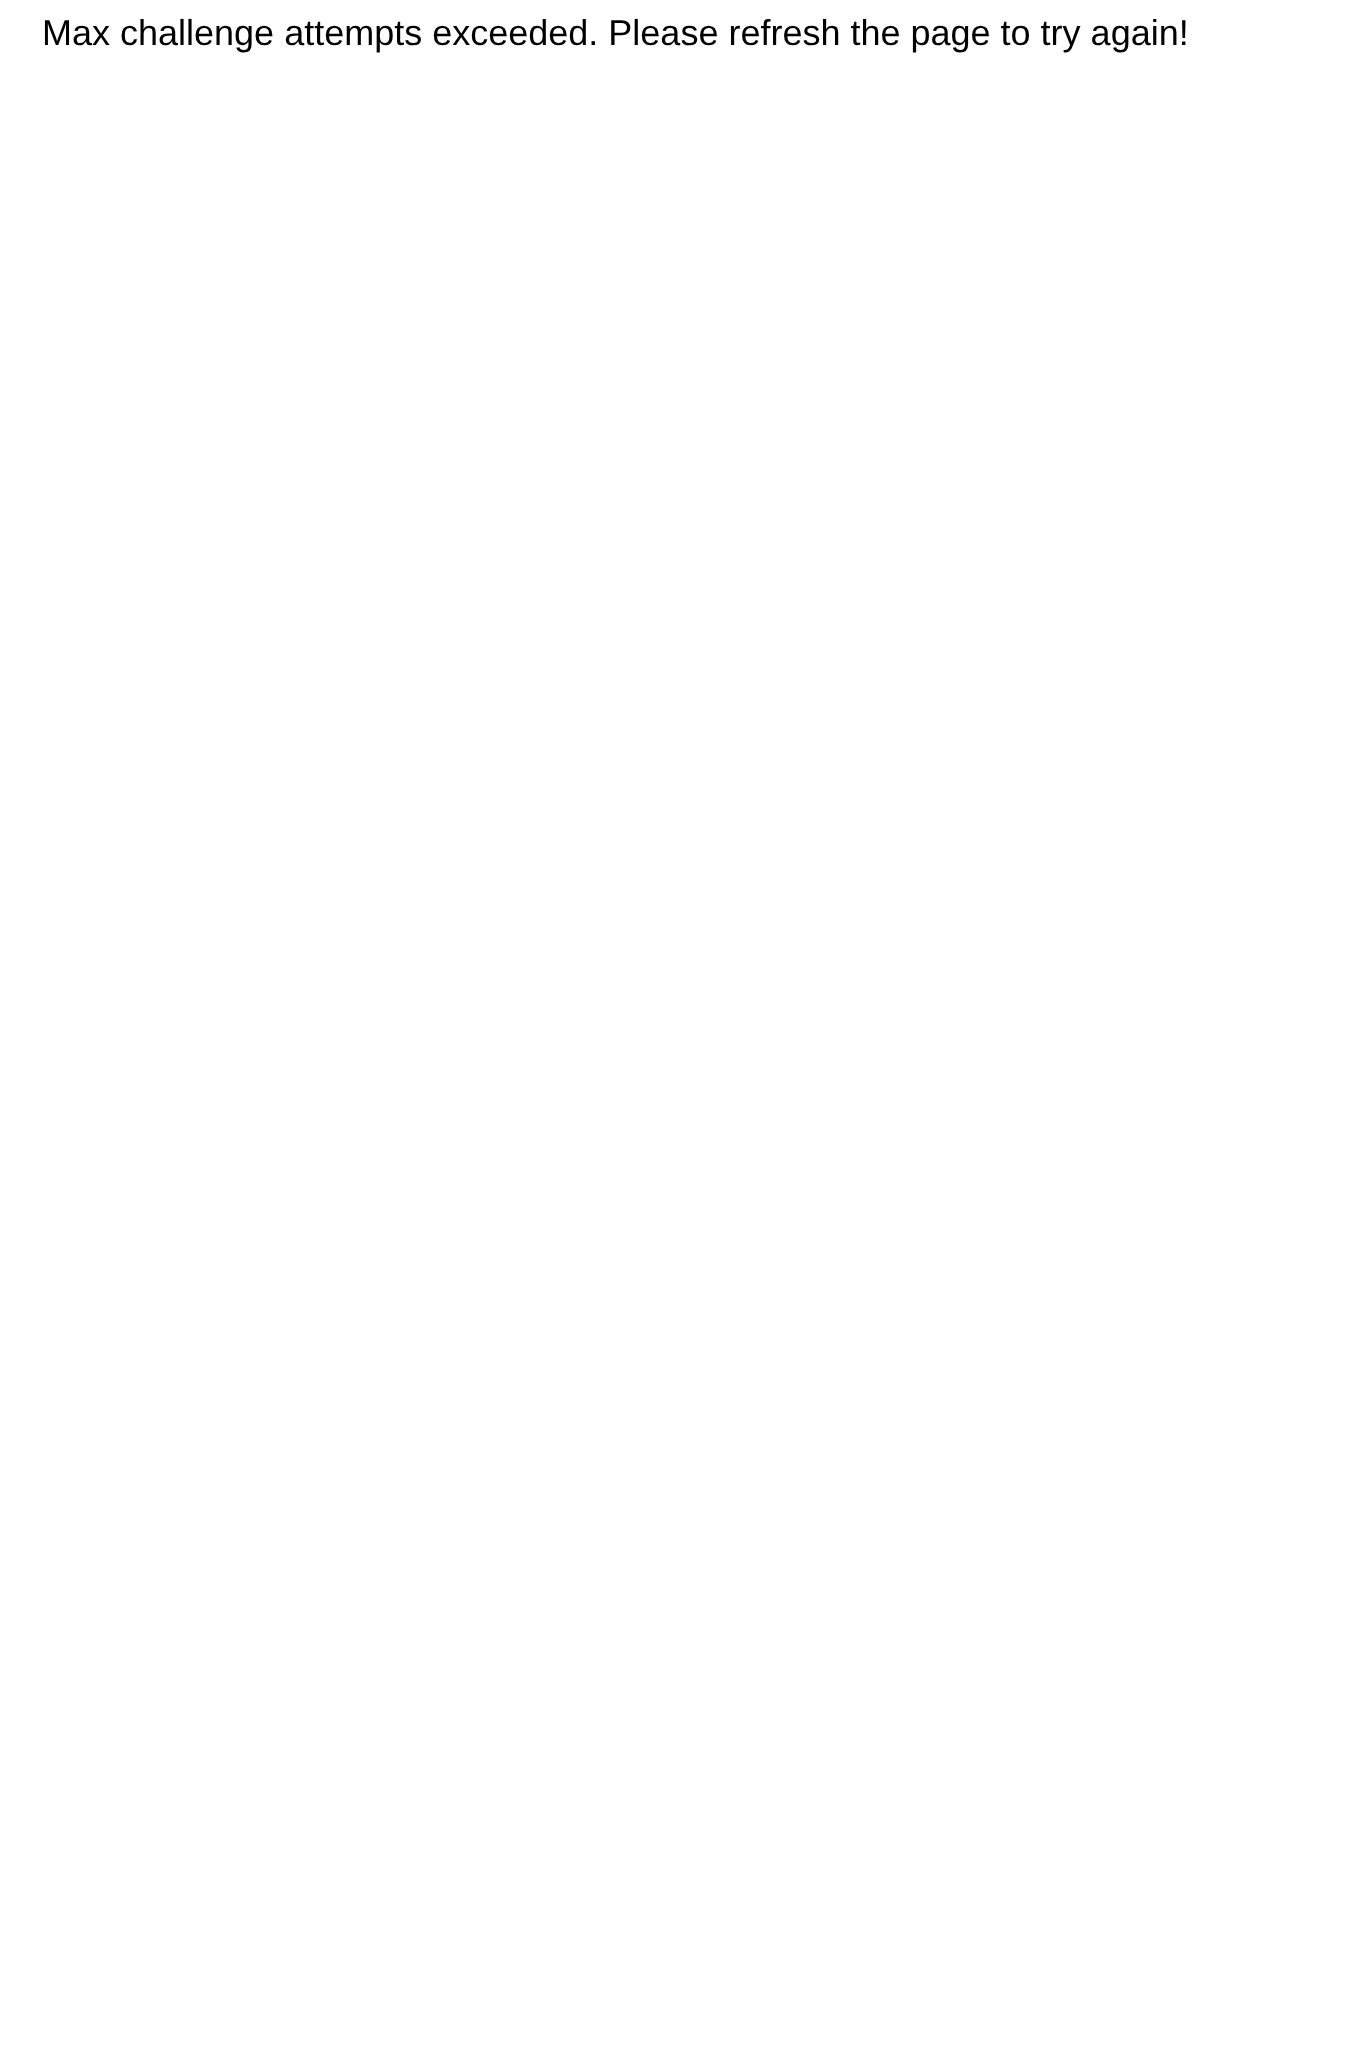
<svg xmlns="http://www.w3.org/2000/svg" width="1352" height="2052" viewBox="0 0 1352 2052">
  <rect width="100%" height="100%" fill="#ffffff"/>
  <text x="42" y="45" font-family="Liberation Sans" font-size="36" fill="#000000">Max challenge attempts exceeded. Please refresh the page to try again!</text>
</svg>
